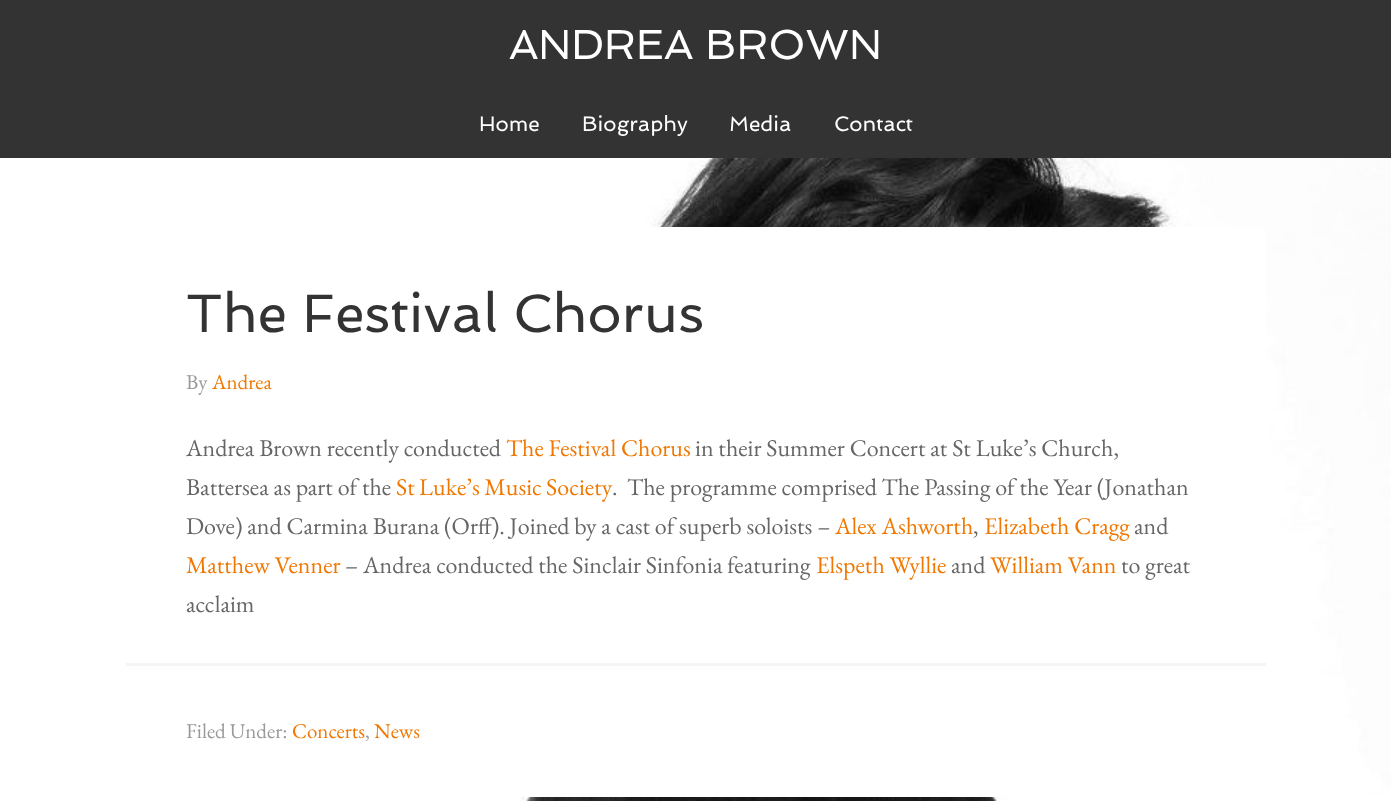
<svg xmlns="http://www.w3.org/2000/svg" width="1391" height="801" viewBox="0 0 1391 801">
  <rect width="100%" height="100%" fill="#ffffff"/>
  <image x="518" y="158" width="873" height="643" href="img1.png"/>
  <rect x="0" y="0" width="1391" height="158" fill="#333333"/>
  <text x="509" y="59" font-family="Spinnaker" font-size="42" fill="#ffffff">ANDREA BROWN</text>
  <text x="479" y="131" font-family="Spinnaker" font-size="21" fill="#ffffff">Home</text>
  <text x="582" y="131" font-family="Spinnaker" font-size="21" fill="#ffffff">Biography</text>
  <text x="729" y="131" font-family="Spinnaker" font-size="21" fill="#ffffff">Media</text>
  <text x="834" y="131" font-family="Spinnaker" font-size="21" fill="#ffffff">Contact</text>
  <rect x="126" y="227" width="1140" height="570" rx="5" fill="#ffffff"/>
  <text x="186" y="332" font-family="Spinnaker" font-size="54" fill="#333333">The Festival Chorus</text>
  <text x="186" y="389" font-family="EB Garamond" font-size="21" fill="#999999">By</text>
  <text x="212" y="389" font-family="EB Garamond" font-size="21" fill="#f07802">Andrea</text>
  <text x="186" y="456" font-family="EB Garamond" font-size="24" fill="#666666">Andrea Brown recently conducted</text>
  <text x="506" y="456" font-family="EB Garamond" font-size="24" fill="#f07802">The Festival Chorus</text>
  <text x="695" y="456" font-family="EB Garamond" font-size="24" fill="#666666">in their Summer Concert at St Luke’s Church,</text>
  <text x="186" y="495" font-family="EB Garamond" font-size="24" fill="#666666">Battersea as part of the</text>
  <text x="396" y="495" word-spacing="-0.5" font-family="EB Garamond" font-size="24" fill="#f07802">St Luke’s Music Society</text>
  <text x="612" y="495" font-family="EB Garamond" font-size="24" fill="#666666" xml:space="preserve">.  The programme comprised The Passing of the Year (Jonathan</text>
  <text x="186" y="534" font-family="EB Garamond" font-size="24" fill="#666666">Dove) and Carmina Burana (Orff). Joined by a cast of superb soloists –</text>
  <text x="835" y="534" font-family="EB Garamond" font-size="24" fill="#f07802">Alex Ashworth</text>
  <text x="973" y="534" font-family="EB Garamond" font-size="24" fill="#666666">,</text>
  <text x="984" y="534" font-family="EB Garamond" font-size="24" fill="#f07802">Elizabeth Cragg</text>
  <text x="1134" y="534" font-family="EB Garamond" font-size="24" fill="#666666">and</text>
  <text x="186" y="573" font-family="EB Garamond" font-size="24" fill="#f07802">Matthew Venner</text>
  <text x="345" y="573" font-family="EB Garamond" font-size="24" fill="#666666">– Andrea conducted the Sinclair Sinfonia featuring</text>
  <text x="816" y="573" font-family="EB Garamond" font-size="24" fill="#f07802">Elspeth Wyllie</text>
  <text x="951" y="573" font-family="EB Garamond" font-size="24" fill="#666666">and</text>
  <text x="990" y="573" font-family="EB Garamond" font-size="24" fill="#f07802">William Vann</text>
  <text x="1121" y="573" font-family="EB Garamond" font-size="24" fill="#666666">to great</text>
  <text x="186" y="612" font-family="EB Garamond" font-size="24" fill="#666666">acclaim</text>
  <rect x="126" y="663" width="1140" height="3" fill="#f5f5f5"/>
  <text x="186" y="738" font-family="EB Garamond" font-size="21" fill="#999999">Filed Under:</text>
  <text x="292" y="738" font-family="EB Garamond" font-size="21" fill="#f07802">Concerts</text>
  <text x="365" y="738" font-family="EB Garamond" font-size="21" fill="#999999">,</text>
  <text x="374" y="738" font-family="EB Garamond" font-size="21" fill="#f07802">News</text>
</svg>
